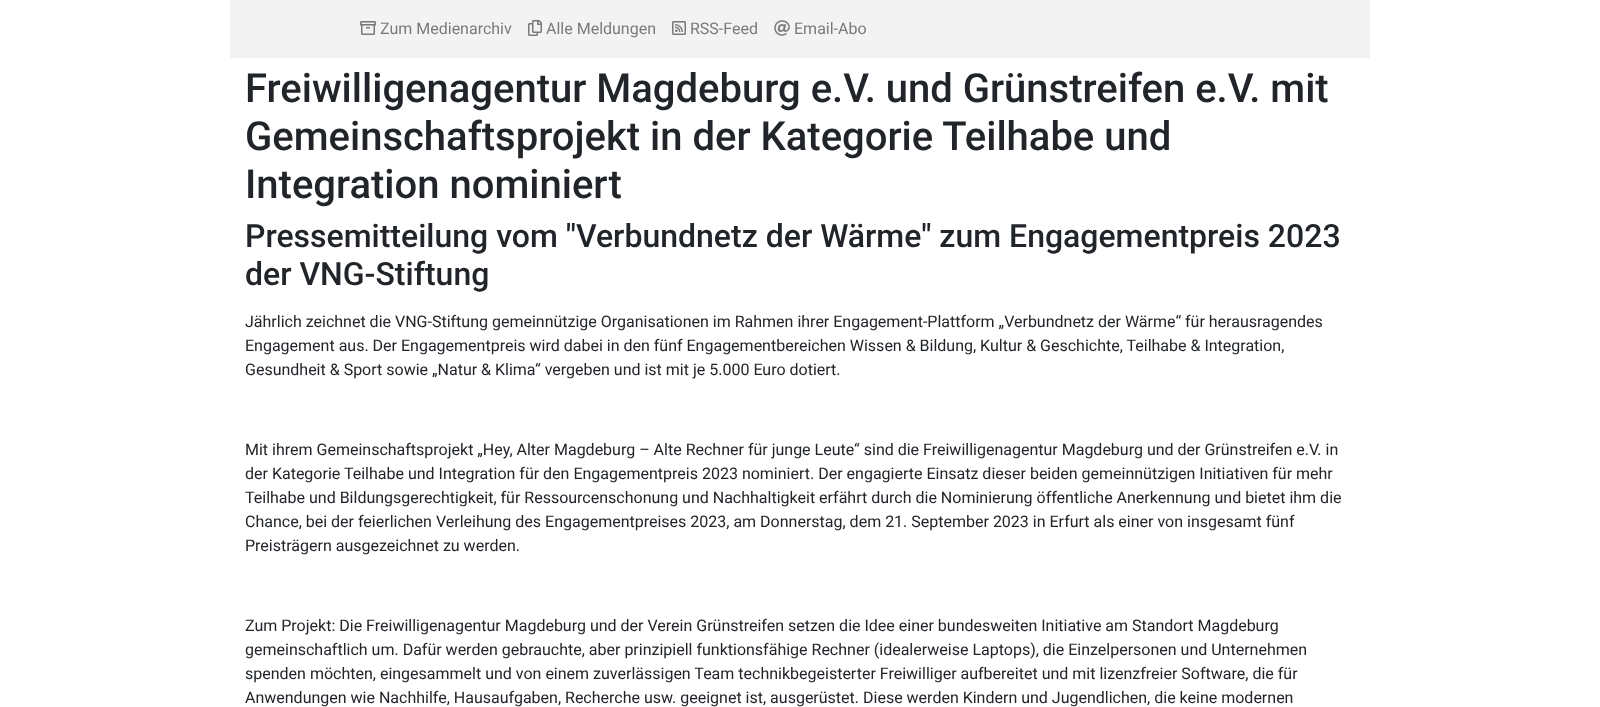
<svg xmlns="http://www.w3.org/2000/svg" width="1600" height="707" viewBox="0 0 1600 707">
  <rect width="100%" height="100%" fill="#ffffff"/>
  <rect x="230" y="0" width="1140" height="58" fill="#f3f3f3"/>
  <image x="360" y="21" width="16" height="14" href="img1.png"/>
  <text x="380" y="34" font-family="Roboto" font-size="16" fill="#7a7a7a">Zum Medienarchiv</text>
  <image x="528" y="20" width="14" height="16" href="img2.png"/>
  <text x="546" y="34" font-family="Roboto" font-size="16" fill="#7a7a7a">Alle Meldungen</text>
  <image x="672" y="21" width="14" height="14" href="img3.png"/>
  <text x="690" y="34" font-family="Roboto" font-size="16" fill="#7a7a7a">RSS-Feed</text>
  <image x="774" y="20" width="16" height="16" href="img4.png"/>
  <text x="794" y="34" font-family="Roboto" font-size="16" fill="#7a7a7a">Email-Abo</text>
  <text x="245" y="102" font-family="Roboto" font-size="40" font-weight="500" fill="#212529">Freiwilligenagentur Magdeburg e.V. und Grünstreifen e.V. mit</text>
  <text x="245" y="150" font-family="Roboto" font-size="40" font-weight="500" fill="#212529">Gemeinschaftsprojekt in der Kategorie Teilhabe und</text>
  <text x="245" y="198" font-family="Roboto" font-size="40" font-weight="500" fill="#212529">Integration nominiert</text>
  <text x="245" y="247" font-family="Roboto" font-size="32" font-weight="500" fill="#212529">Pressemitteilung vom "Verbundnetz der Wärme" zum Engagementpreis 2023</text>
  <text x="245" y="285" font-family="Roboto" font-size="32" font-weight="500" fill="#212529">der VNG-Stiftung</text>
  <text x="245" y="327" font-family="Roboto" font-size="16" fill="#212529">Jährlich zeichnet die VNG-Stiftung gemeinnützige Organisationen im Rahmen ihrer Engagement-Plattform „Verbundnetz der Wärme“ für herausragendes</text>
  <text x="245" y="351" font-family="Roboto" font-size="16" fill="#212529">Engagement aus. Der Engagementpreis wird dabei in den fünf Engagementbereichen Wissen &amp; Bildung, Kultur &amp; Geschichte, Teilhabe &amp; Integration,</text>
  <text x="245" y="375" font-family="Roboto" font-size="16" fill="#212529">Gesundheit &amp; Sport sowie „Natur &amp; Klima“ vergeben und ist mit je 5.000 Euro dotiert.</text>
  <text x="245" y="455" font-family="Roboto" font-size="16" fill="#212529">Mit ihrem Gemeinschaftsprojekt „Hey, Alter Magdeburg – Alte Rechner für junge Leute“ sind die Freiwilligenagentur Magdeburg und der Grünstreifen e.V. in</text>
  <text x="245" y="479" font-family="Roboto" font-size="16" fill="#212529">der Kategorie Teilhabe und Integration für den Engagementpreis 2023 nominiert. Der engagierte Einsatz dieser beiden gemeinnützigen Initiativen für mehr</text>
  <text x="245" y="503" font-family="Roboto" font-size="16" fill="#212529">Teilhabe und Bildungsgerechtigkeit, für Ressourcenschonung und Nachhaltigkeit erfährt durch die Nominierung öffentliche Anerkennung und bietet ihm die</text>
  <text x="245" y="527" font-family="Roboto" font-size="16" fill="#212529">Chance, bei der feierlichen Verleihung des Engagementpreises 2023, am Donnerstag, dem 21. September 2023 in Erfurt als einer von insgesamt fünf</text>
  <text x="245" y="551" font-family="Roboto" font-size="16" fill="#212529">Preisträgern ausgezeichnet zu werden.</text>
  <text x="245" y="631" font-family="Roboto" font-size="16" fill="#212529">Zum Projekt: Die Freiwilligenagentur Magdeburg und der Verein Grünstreifen setzen die Idee einer bundesweiten Initiative am Standort Magdeburg</text>
  <text x="245" y="655" font-family="Roboto" font-size="16" fill="#212529">gemeinschaftlich um. Dafür werden gebrauchte, aber prinzipiell funktionsfähige Rechner (idealerweise Laptops), die Einzelpersonen und Unternehmen</text>
  <text x="245" y="679" font-family="Roboto" font-size="16" fill="#212529">spenden möchten, eingesammelt und von einem zuverlässigen Team technikbegeisterter Freiwilliger aufbereitet und mit lizenzfreier Software, die für</text>
  <text x="245" y="703" font-family="Roboto" font-size="16" fill="#212529">Anwendungen wie Nachhilfe, Hausaufgaben, Recherche usw. geeignet ist, ausgerüstet. Diese werden Kindern und Jugendlichen, die keine modernen</text>
</svg>
